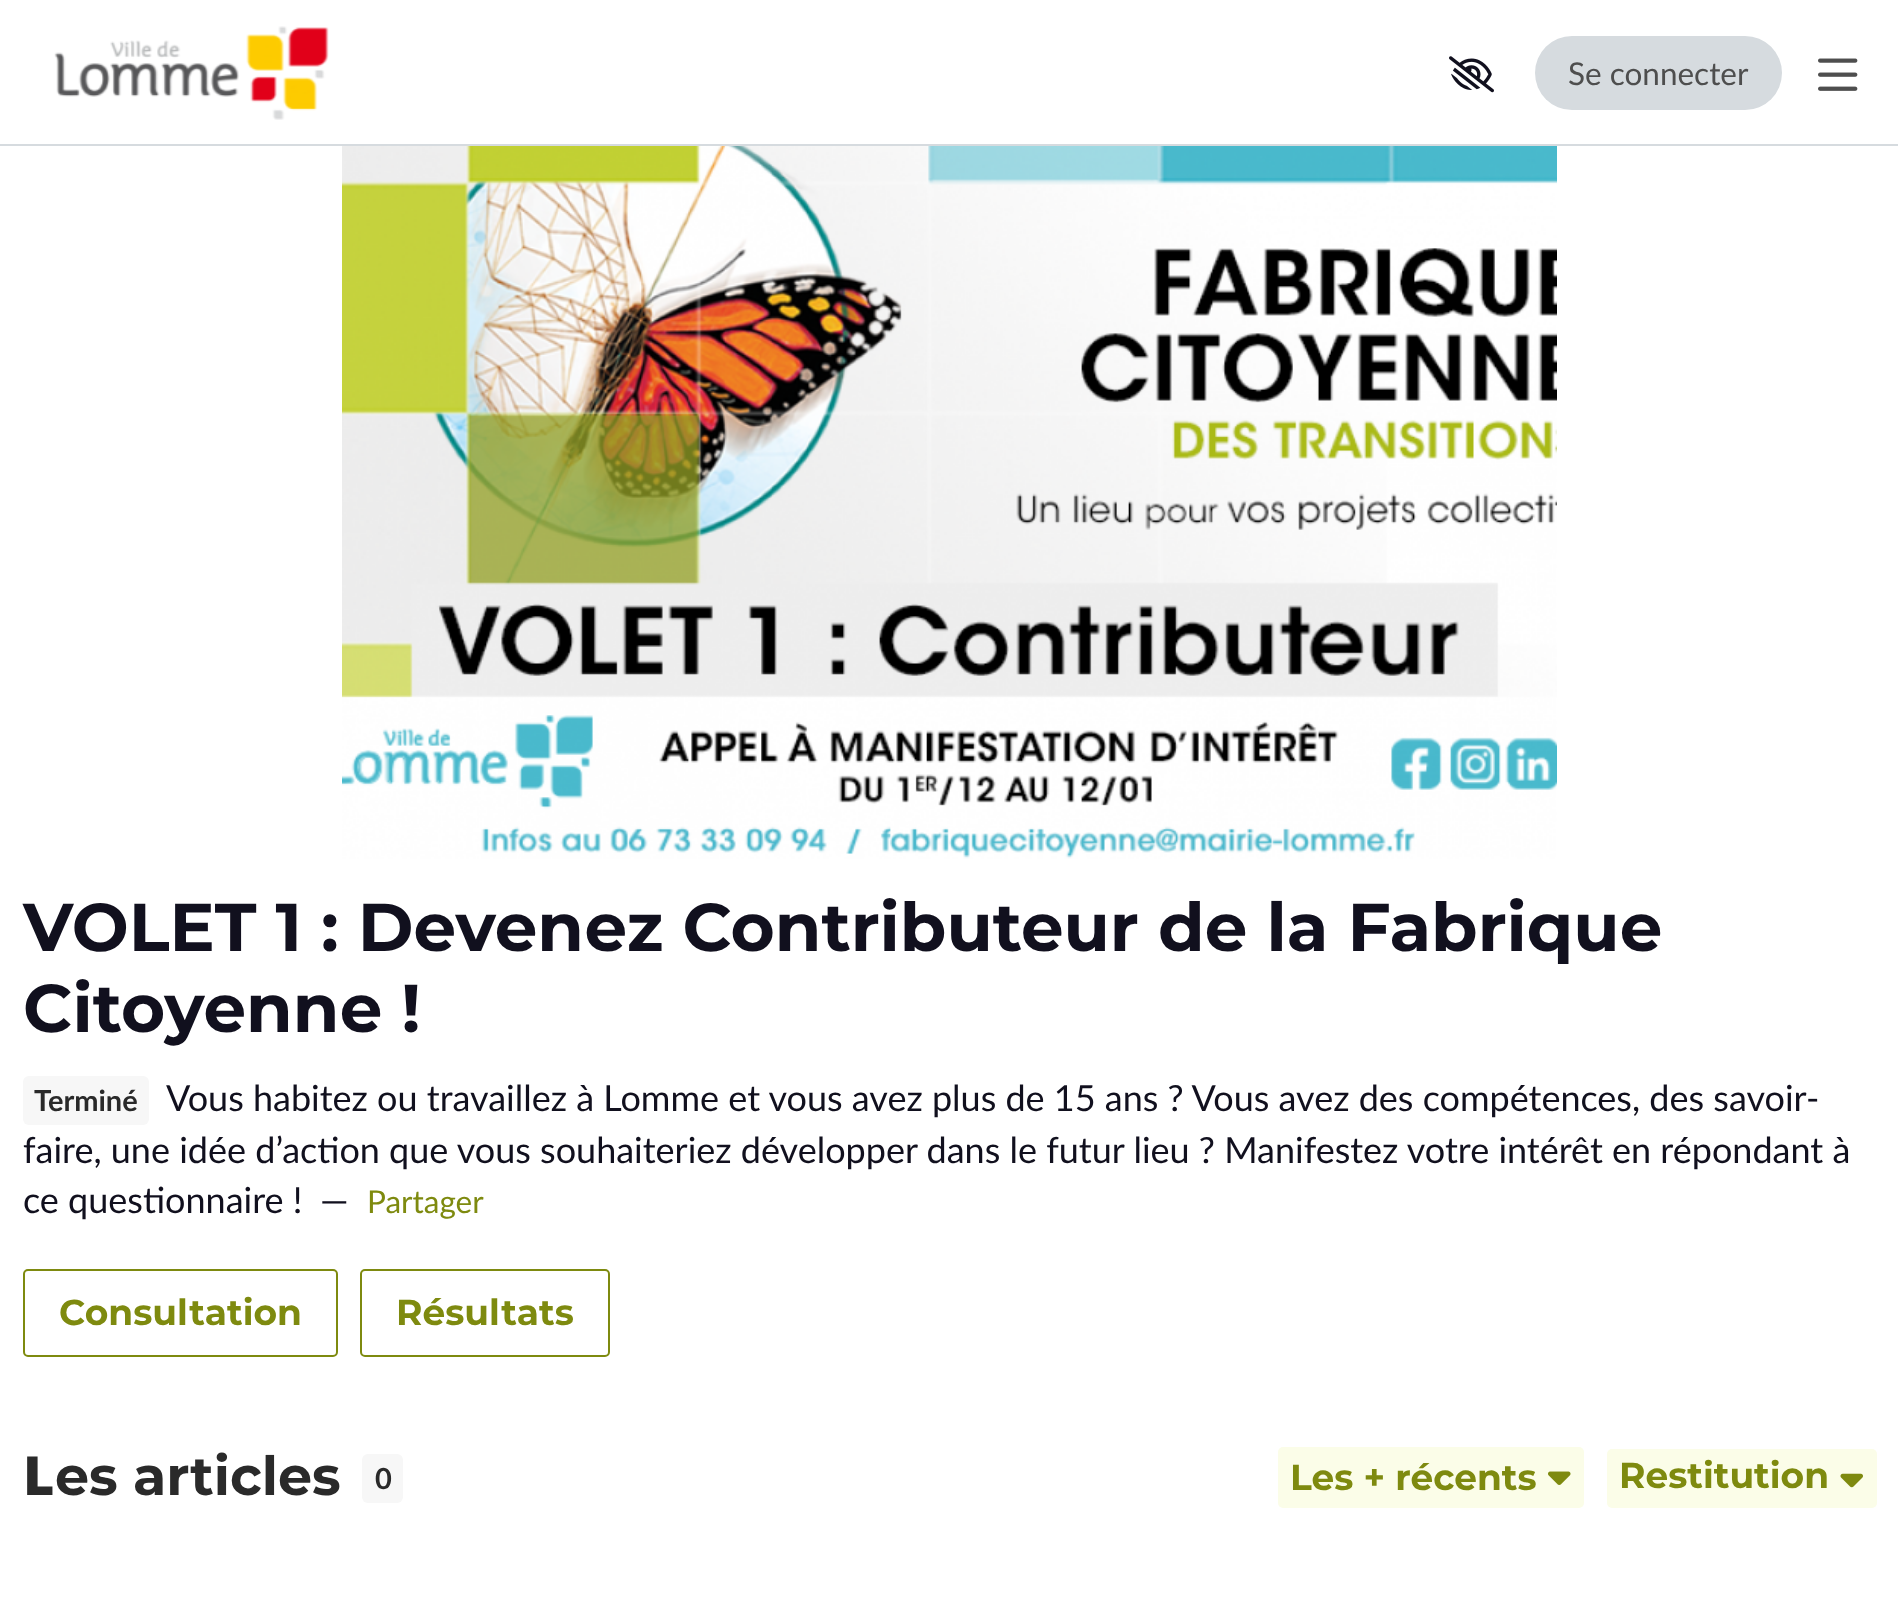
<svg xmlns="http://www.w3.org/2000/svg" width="1898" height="1605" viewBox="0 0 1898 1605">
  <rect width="100%" height="100%" fill="#ffffff"/>
  <rect x="0" y="144" width="1898" height="2" fill="#d6dbdf"/>
  <image x="54" y="26" width="275" height="94" href="img1.png"/>
  <image x="1449" y="56" width="45" height="37" href="img2.png"/>
  <rect x="1535" y="36" width="247" height="74" rx="37" fill="#d6dbdf"/>
  <text x="1568" y="85" font-family="Lato" font-size="31.5" fill="#4e4e4e">Se connecter</text>
  <image x="1818" y="58" width="40" height="33" href="img3.png"/>
  <image x="342" y="146" width="1215" height="713" href="img4.png"/>
  <text x="23" y="951" font-family="Montserrat" font-size="67.5" font-weight="bold" fill="#11101e">VOLET 1 : Devenez Contributeur de la Fabrique</text>
  <text x="23" y="1032" font-family="Montserrat" font-size="67.5" font-weight="bold" fill="#11101e">Citoyenne !</text>
  <rect x="23" y="1076" width="126" height="49" rx="6" fill="#f7f7f7"/>
  <text x="34" y="1111" font-family="Lato" font-size="29" font-weight="bold" fill="#2a2a2a">Terminé</text>
  <text x="166" y="1111" font-family="Lato" font-size="36" fill="#11101e">Vous habitez ou travaillez à Lomme et vous avez plus de 15 ans ? Vous avez des compétences, des savoir-</text>
  <text x="23" y="1163" font-family="Lato" font-size="36" fill="#11101e">faire, une idée d’action que vous souhaiteriez développer dans le futur lieu ? Manifestez votre intérêt en répondant à</text>
  <text x="23" y="1213" font-family="Lato" font-size="36" fill="#11101e">ce questionnaire !</text>
  <text x="320" y="1213" font-family="Lato" font-size="36" fill="#11101e">—</text>
  <text x="367" y="1213" font-family="Lato" font-size="31.5" fill="#7e8a0f">Partager</text>
  <rect x="24" y="1270" width="313" height="86" rx="4" fill="none" stroke="#7e8a0f" stroke-width="2"/>
  <text x="59" y="1325" font-family="Montserrat" font-size="36" font-weight="bold" fill="#7e8a0f">Consultation</text>
  <rect x="361" y="1270" width="248" height="86" rx="4" fill="none" stroke="#7e8a0f" stroke-width="2"/>
  <text x="396" y="1325" font-family="Montserrat" font-size="36" font-weight="bold" fill="#7e8a0f">Résultats</text>
  <text x="23" y="1495" font-family="Noto Sans" font-size="54" font-weight="900" fill="#2a2a2a">L</text>
  <text x="55" y="1495" font-family="Montserrat" font-size="54" font-weight="bold" fill="#2a2a2a">es articles</text>
  <rect x="362" y="1454" width="41" height="49" rx="6" fill="#f7f7f7"/>
  <text x="375" y="1489" font-family="Lato" font-size="29" font-weight="bold" fill="#2a2a2a">0</text>
  <rect x="1278" y="1447" width="306" height="61" rx="5" fill="#fbfde8"/>
  <text x="1290" y="1490" font-family="Montserrat" font-size="36" font-weight="bold" fill="#7e8a0f">Les + récents</text>
  <image x="1548" y="1471" width="23" height="14" href="img5.png"/>
  <rect x="1607" y="1449" width="270" height="59" rx="5" fill="#fbfde8"/>
  <text x="1619" y="1488" font-family="Montserrat" font-size="36" font-weight="bold" fill="#7e8a0f">Restitution</text>
  <image x="1840" y="1473" width="23" height="15" href="img6.png"/>
</svg>
